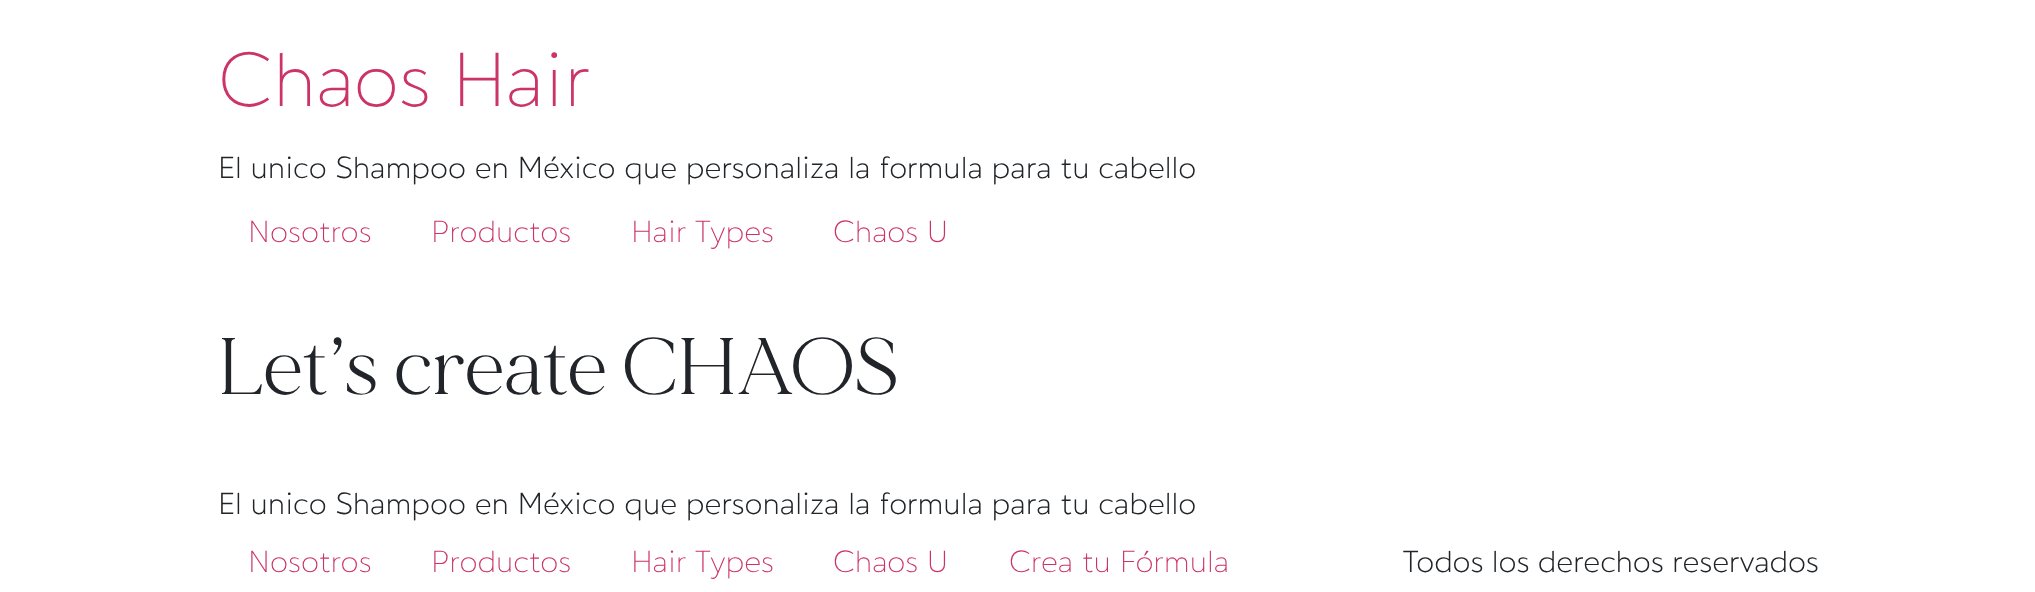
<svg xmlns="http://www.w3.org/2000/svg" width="2035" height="592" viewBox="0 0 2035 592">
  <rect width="100%" height="100%" fill="#ffffff"/>
  <text x="218" y="106" font-family="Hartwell" font-size="80" font-weight="200" fill="#cc3366">Chaos Hair</text>
  <text x="218" y="178" font-family="Hartwell" font-size="32" font-weight="300" fill="#212529">El unico Shampoo en México que personaliza la formula para tu cabello</text>
  <text x="248" y="242" font-family="Hartwell" font-size="32" font-weight="200" fill="#cc3366">Nosotros</text>
  <text x="431" y="242" font-family="Hartwell" font-size="32" font-weight="200" fill="#cc3366">Productos</text>
  <text x="631" y="242" font-family="Hartwell" font-size="32" font-weight="200" fill="#cc3366">Hair Types</text>
  <text x="833" y="242" font-family="Hartwell" font-size="32" font-weight="200" fill="#cc3366">Chaos U</text>
  <text x="218" y="394" font-family="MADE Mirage" font-size="80" fill="#212529">Let’s create CHAOS</text>
  <text x="218" y="514" font-family="Hartwell" font-size="32" font-weight="300" fill="#212529">El unico Shampoo en México que personaliza la formula para tu cabello</text>
  <text x="248" y="572" font-family="Hartwell" font-size="32" font-weight="200" fill="#cc3366">Nosotros</text>
  <text x="431" y="572" font-family="Hartwell" font-size="32" font-weight="200" fill="#cc3366">Productos</text>
  <text x="631" y="572" font-family="Hartwell" font-size="32" font-weight="200" fill="#cc3366">Hair Types</text>
  <text x="833" y="572" font-family="Hartwell" font-size="32" font-weight="200" fill="#cc3366">Chaos U</text>
  <text x="1009" y="572" font-family="Hartwell" font-size="32" font-weight="200" fill="#cc3366">Crea tu Fórmula</text>
  <text x="1403" y="572" font-family="Hartwell" font-size="32" font-weight="300" fill="#212529">Todos los derechos reservados</text>
</svg>
